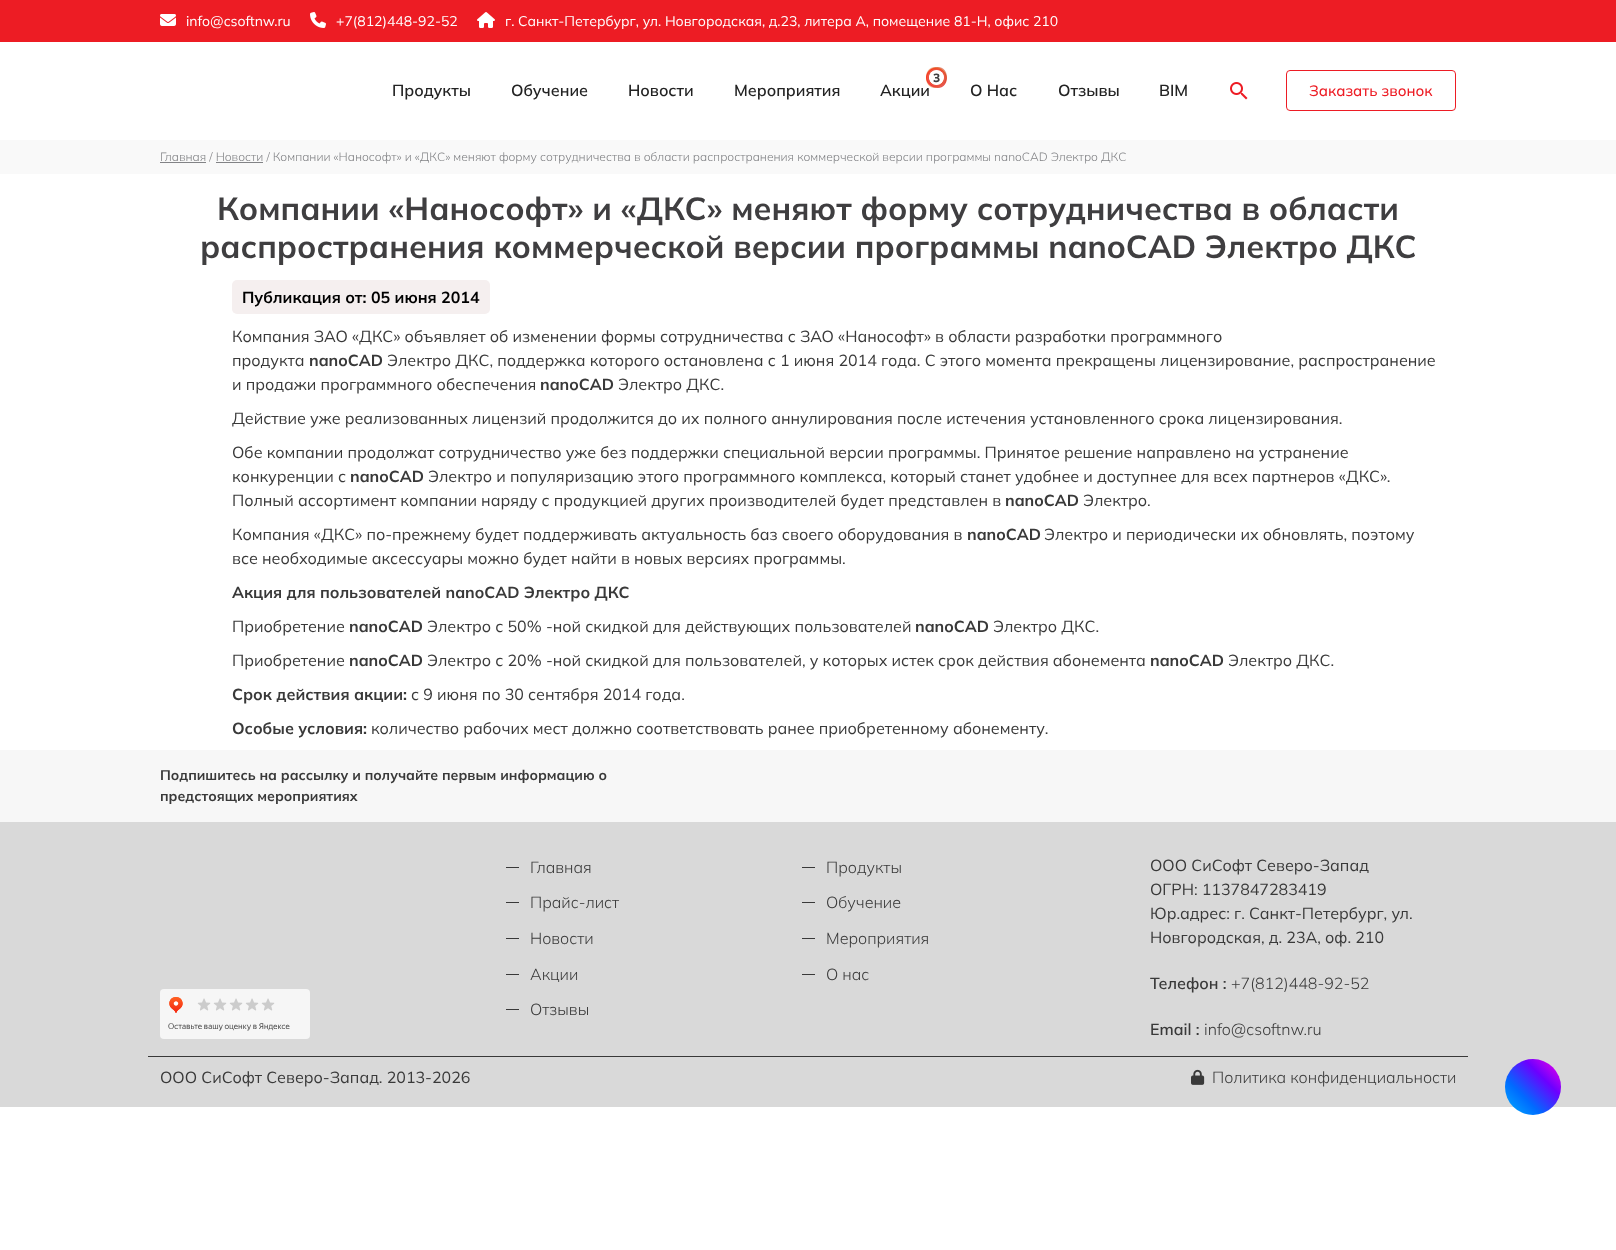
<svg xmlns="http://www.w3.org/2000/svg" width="1616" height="1250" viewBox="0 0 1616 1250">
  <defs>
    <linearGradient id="g1" gradientUnits="userSpaceOnUse" x1="1505" y1="1115" x2="1561" y2="1059"><stop offset="0" stop-color="#00b2ff"/><stop offset="0.33" stop-color="#006aff"/><stop offset="0.67" stop-color="#6c00ff"/><stop offset="1" stop-color="#ff00e5"/></linearGradient>
  </defs>
  <rect width="100%" height="100%" fill="#ffffff"/>
  <rect x="0" y="0" width="1616" height="42" fill="#ed1c24"/>
  <image x="160" y="14" width="16" height="12" href="img1.png"/>
  <text x="186" y="26" font-family="Mulish" font-size="14" fill="#ffffff">info@csoftnw.ru</text>
  <image x="310" y="12" width="16" height="16" href="img2.png"/>
  <text x="336" y="26" font-family="Mulish" font-size="14" fill="#ffffff">+7(812)448-92-52</text>
  <image x="477" y="12" width="18" height="16" href="img3.png"/>
  <text x="505" y="26" font-family="Mulish" font-size="14" fill="#ffffff">г. Санкт-Петербург, ул. Новгородская, д.23, литера А, помещение 81-Н, офис 210</text>
  <text x="392" y="96" font-family="Mulish" font-size="16" font-weight="600" fill="#232323">Продукты</text>
  <text x="511" y="96" font-family="Mulish" font-size="16" font-weight="600" fill="#232323">Обучение</text>
  <text x="628" y="96" font-family="Mulish" font-size="16" font-weight="600" fill="#232323">Новости</text>
  <text x="734" y="96" font-family="Mulish" font-size="16" font-weight="600" fill="#232323">Мероприятия</text>
  <text x="880" y="96" font-family="Mulish" font-size="16" font-weight="600" fill="#232323">Акции</text>
  <path d="M935.5 67C923 67 923 86 935.5 86C948 86 948 67 935.5 67ZM936.5 70C926.5 70 926.5 85 936.5 85C946.5 85 946.5 70 936.5 70Z" fill="#ecb790" fill-rule="evenodd"/>
  <path d="M937.5 69C925 69 925 88 937.5 88C950 88 950 69 937.5 69ZM936.5 70C926.5 70 926.5 85 936.5 85C946.5 85 946.5 70 936.5 70Z" fill="#e60000" fill-opacity="0.75" fill-rule="evenodd"/>
  <path d="M935.5 69C923 69 923 88 935.5 88C948 88 948 69 935.5 69ZM936.5 70C926.5 70 926.5 85 936.5 85C946.5 85 946.5 70 936.5 70Z" fill="#ea7000" fill-opacity="0.5" fill-rule="evenodd"/>
  <path d="M937.5 67C925 67 925 86 937.5 86C950 86 950 67 937.5 67ZM936.5 70C926.5 70 926.5 85 936.5 85C946.5 85 946.5 70 936.5 70Z" fill="#c71901" fill-opacity="0.5" fill-rule="evenodd"/>
  <path d="M935.5 68C923 68 923 87 935.5 87C948 87 948 68 935.5 68ZM936.5 70C926.5 70 926.5 85 936.5 85C946.5 85 946.5 70 936.5 70Z" fill="#ff0000" fill-opacity="0.66" fill-rule="evenodd"/>
  <path d="M937.5 68C925 68 925 87 937.5 87C950 87 950 68 937.5 68ZM936.5 70C926.5 70 926.5 85 936.5 85C946.5 85 946.5 70 936.5 70Z" fill="#e88816" fill-opacity="0.25" fill-rule="evenodd"/>
  <path d="M936.5 67C924 67 924 86 936.5 86C949 86 949 67 936.5 67ZM936.5 70C926.5 70 926.5 85 936.5 85C946.5 85 946.5 70 936.5 70Z" fill="#ff8243" fill-opacity="0.25" fill-rule="evenodd"/>
  <path d="M936.5 69C924 69 924 88 936.5 88C949 88 949 69 936.5 69ZM936.5 70C926.5 70 926.5 85 936.5 85C946.5 85 946.5 70 936.5 70Z" fill="#e183c2" fill-opacity="0.25" fill-rule="evenodd"/>
  <circle cx="936.5" cy="77.5" r="7.5" fill="#ffffff"/>
  <text x="933" y="82" font-family="Mulish" font-size="12" font-weight="800" fill="#3f3e40">3</text>
  <text x="970" y="96" font-family="Mulish" font-size="16" font-weight="600" fill="#232323">О Нас</text>
  <text x="1058" y="96" font-family="Mulish" font-size="16" font-weight="600" fill="#232323">Отзывы</text>
  <text x="1159" y="96" font-family="Mulish" font-size="16" font-weight="600" fill="#232323">BIM</text>
  <image x="1230" y="82" width="18" height="18" href="img4.png"/>
  <rect x="1286.5" y="70.5" width="169" height="40" rx="3.5" fill="none" stroke="#ed1c24"/>
  <text x="1309" y="96" font-family="Mulish" font-size="15" font-weight="500" fill="#ed1c24">Заказать звонок</text>
  <rect x="0" y="140" width="1616" height="34" fill="#f9f9f9"/>
  <rect x="160" y="162" width="46" height="1" fill="#828386"/>
  <text x="160" y="161" font-family="Mulish" font-size="12" font-weight="300" fill="#828386">Главная / Новости / Компании «Нанософт» и «ДКС» меняют форму сотрудничества в области распространения коммерческой версии программы nanoCAD Электро ДКС</text>
  <rect x="216" y="162" width="47" height="1" fill="#828386"/>
  <text x="217" y="220" font-family="Mulish" font-size="32" font-weight="bold" fill="#3f3e40">Компании «Нанософт» и «ДКС» меняют форму сотрудничества в области</text>
  <text x="200" y="258" font-family="Mulish" font-size="32" font-weight="bold" fill="#3f3e40">распространения коммерческой версии программы nanoCAD Электро ДКС</text>
  <rect x="232" y="280" width="258" height="34" rx="5" fill="#f5efef"/>
  <text x="242" y="303" font-family="Mulish" font-size="16" font-weight="bold" fill="#000000">Публикация от: 05 июня 2014</text>
  <text x="232" y="342" font-family="Mulish" font-size="16" fill="#393939">Компания ЗАО «ДКС» объявляет об изменении формы сотрудничества с ЗАО «Нанософт» в области разработки программного</text>
  <text x="232" y="366" font-family="Mulish" font-size="16" fill="#393939">продукта</text>
  <text x="309" y="366" font-family="Mulish" font-size="16" font-weight="bold" fill="#393939">nanoCAD</text>
  <text x="387" y="366" font-family="Mulish" font-size="16" fill="#393939">Электро ДКС, поддержка которого остановлена с 1 июня 2014 года. С этого момента прекращены лицензирование, распространение</text>
  <text x="232" y="390" font-family="Mulish" font-size="16" fill="#393939">и продажи программного обеспечения</text>
  <text x="540" y="390" font-family="Mulish" font-size="16" font-weight="bold" fill="#393939">nanoCAD</text>
  <text x="618" y="390" font-family="Mulish" font-size="16" fill="#393939">Электро ДКС.</text>
  <text x="232" y="424" font-family="Mulish" font-size="16" fill="#393939">Действие уже реализованных лицензий продолжится до их полного аннулирования после истечения установленного срока лицензирования.</text>
  <text x="232" y="458" font-family="Mulish" font-size="16" fill="#393939">Обе компании продолжат сотрудничество уже без поддержки специальной версии программы. Принятое решение направлено на устранение</text>
  <text x="232" y="482" font-family="Mulish" font-size="16" fill="#393939">конкуренции с</text>
  <text x="350" y="482" font-family="Mulish" font-size="16" font-weight="bold" fill="#393939">nanoCAD</text>
  <text x="428" y="482" font-family="Mulish" font-size="16" fill="#393939">Электро и популяризацию этого программного комплекса, который станет удобнее и доступнее для всех партнеров «ДКС».</text>
  <text x="232" y="506" font-family="Mulish" font-size="16" fill="#393939">Полный ассортимент компании наряду с продукцией других производителей будет представлен в</text>
  <text x="1005" y="506" font-family="Mulish" font-size="16" font-weight="bold" fill="#393939">nanoCAD</text>
  <text x="1083" y="506" font-family="Mulish" font-size="16" fill="#393939">Электро.</text>
  <text x="232" y="540" font-family="Mulish" font-size="16" fill="#393939">Компания «ДКС» по-прежнему будет поддерживать актуальность баз своего оборудования в</text>
  <text x="967" y="540" font-family="Mulish" font-size="16" font-weight="bold" fill="#393939">nanoCAD</text>
  <text x="1044" y="540" font-family="Mulish" font-size="16" fill="#393939">Электро и периодически их обновлять, поэтому</text>
  <text x="232" y="564" font-family="Mulish" font-size="16" fill="#393939">все необходимые аксессуары можно будет найти в новых версиях программы.</text>
  <text x="232" y="598" font-family="Mulish" font-size="16" font-weight="bold" fill="#393939">Акция для пользователей nanoCAD Электро ДКС</text>
  <text x="232" y="632" font-family="Mulish" font-size="16" fill="#393939">Приобретение</text>
  <text x="349" y="632" font-family="Mulish" font-size="16" font-weight="bold" fill="#393939">nanoCAD</text>
  <text x="427" y="632" font-family="Mulish" font-size="16" fill="#393939">Электро с 50% -ной скидкой для действующих пользователей</text>
  <text x="915" y="632" font-family="Mulish" font-size="16" font-weight="bold" fill="#393939">nanoCAD</text>
  <text x="993" y="632" font-family="Mulish" font-size="16" fill="#393939">Электро ДКС.</text>
  <text x="232" y="666" font-family="Mulish" font-size="16" fill="#393939">Приобретение</text>
  <text x="349" y="666" font-family="Mulish" font-size="16" font-weight="bold" fill="#393939">nanoCAD</text>
  <text x="427" y="666" font-family="Mulish" font-size="16" fill="#393939">Электро с 20% -ной скидкой для пользователей, у которых истек срок действия абонемента</text>
  <text x="1150" y="666" font-family="Mulish" font-size="16" font-weight="bold" fill="#393939">nanoCAD</text>
  <text x="1228" y="666" font-family="Mulish" font-size="16" fill="#393939">Электро ДКС.</text>
  <text x="232" y="700" font-family="Mulish" font-size="16" font-weight="bold" fill="#393939">Срок действия акции:</text>
  <text x="411" y="700" font-family="Mulish" font-size="16" fill="#393939">с 9 июня по 30 сентября 2014 года.</text>
  <text x="232" y="734" font-family="Mulish" font-size="16" font-weight="bold" fill="#393939">Особые условия:</text>
  <text x="371" y="734" font-family="Mulish" font-size="16" fill="#393939">количество рабочих мест должно соответствовать ранее приобретенному абонементу.</text>
  <rect x="0" y="750" width="1616" height="72" fill="#f7f7f7"/>
  <text x="160" y="780" font-family="Mulish" font-size="14" font-weight="bold" fill="#393939">Подпишитесь на рассылку и получайте первым информацию о</text>
  <text x="160" y="801" font-family="Mulish" font-size="14" font-weight="bold" fill="#393939">предстоящих мероприятиях</text>
  <rect x="0" y="822" width="1616" height="285" fill="#d9d9d9"/>
  <image x="160" y="989" width="150" height="50" href="img5.png"/>
  <rect x="506" y="867" width="13" height="1" fill="#393939"/>
  <text x="530" y="873" font-family="Mulish" font-size="16" font-weight="300" fill="#393939">Главная</text>
  <rect x="802" y="867" width="13" height="1" fill="#393939"/>
  <text x="826" y="873" font-family="Mulish" font-size="16" font-weight="300" fill="#393939">Продукты</text>
  <rect x="506" y="902" width="13" height="1" fill="#393939"/>
  <text x="530" y="908" font-family="Mulish" font-size="16" font-weight="300" fill="#393939">Прайс-лист</text>
  <rect x="802" y="902" width="13" height="1" fill="#393939"/>
  <text x="826" y="908" font-family="Mulish" font-size="16" font-weight="300" fill="#393939">Обучение</text>
  <rect x="506" y="938" width="13" height="1" fill="#393939"/>
  <text x="530" y="944" font-family="Mulish" font-size="16" font-weight="300" fill="#393939">Новости</text>
  <rect x="802" y="938" width="13" height="1" fill="#393939"/>
  <text x="826" y="944" font-family="Mulish" font-size="16" font-weight="300" fill="#393939">Мероприятия</text>
  <rect x="506" y="974" width="13" height="1" fill="#393939"/>
  <text x="530" y="980" font-family="Mulish" font-size="16" font-weight="300" fill="#393939">Акции</text>
  <rect x="802" y="974" width="13" height="1" fill="#393939"/>
  <text x="826" y="980" font-family="Mulish" font-size="16" font-weight="300" fill="#393939">О нас</text>
  <rect x="506" y="1009" width="13" height="1" fill="#393939"/>
  <text x="530" y="1015" font-family="Mulish" font-size="16" font-weight="300" fill="#393939">Отзывы</text>
  <text x="1150" y="871" font-family="Mulish" font-size="16" fill="#393939">ООО СиСофт Северо-Запад</text>
  <text x="1150" y="895" font-family="Mulish" font-size="16" fill="#393939">ОГРН: 1137847283419</text>
  <text x="1150" y="919" font-family="Mulish" font-size="16" fill="#393939">Юр.адрес: г. Санкт-Петербург, ул.</text>
  <text x="1150" y="943" font-family="Mulish" font-size="16" fill="#393939">Новгородская, д. 23А, оф. 210</text>
  <text x="1150" y="989" font-family="Mulish" font-size="16" font-weight="600" fill="#393939">Телефон :</text>
  <text x="1231" y="989" font-family="Mulish" font-size="16" font-weight="300" fill="#393939">+7(812)448-92-52</text>
  <text x="1150" y="1035" font-family="Mulish" font-size="16" font-weight="600" fill="#393939">Email :</text>
  <text x="1204" y="1035" font-family="Mulish" font-size="16" font-weight="300" fill="#393939">info@csoftnw.ru</text>
  <rect x="148" y="1056" width="1320" height="1" fill="#393939"/>
  <text x="160" y="1083" font-family="Mulish" font-size="16" fill="#393939">ООО СиСофт Северо-Запад. 2013-2026</text>
  <image x="1191" y="1069" width="14" height="16" href="img6.png"/>
  <text x="1212" y="1083" font-family="Mulish" font-size="16" font-weight="300" fill="#393939">Политика конфиденциальности</text>
  <circle cx="1533" cy="1087" r="28" fill="url(#g1)"/>
</svg>
